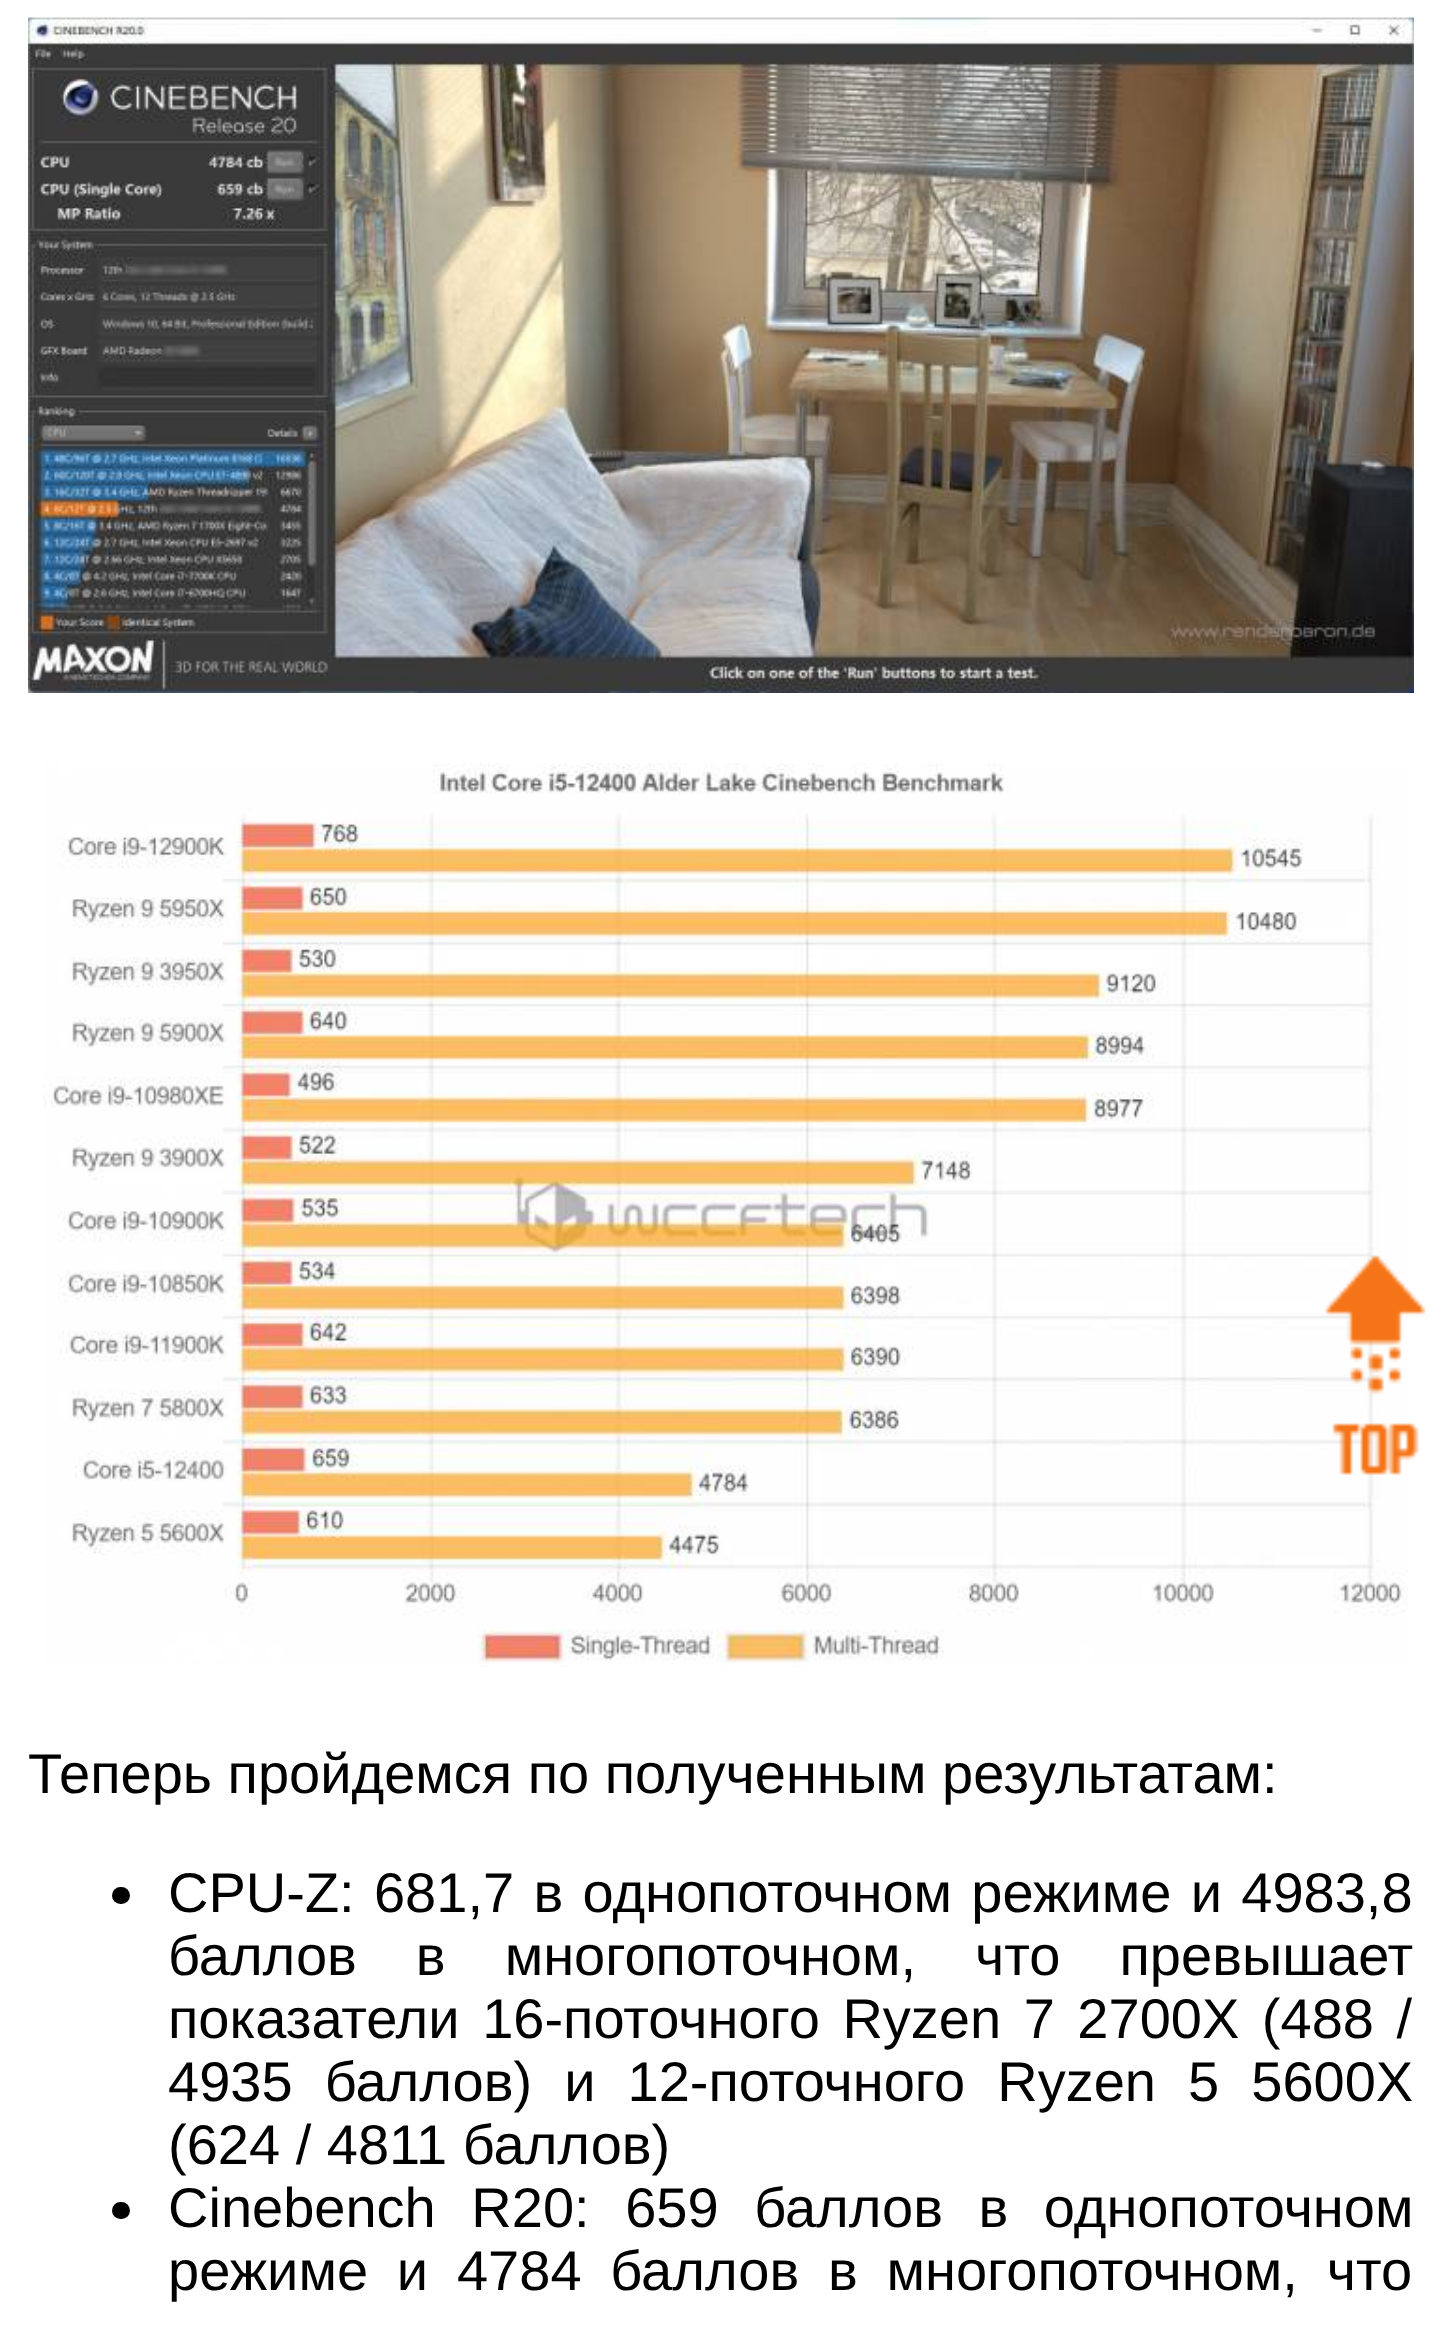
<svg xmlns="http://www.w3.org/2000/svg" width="1441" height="2325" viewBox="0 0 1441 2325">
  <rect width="100%" height="100%" fill="#ffffff"/>
  <image x="43" y="763" width="1365" height="904" href="img3.png"/>
  <image x="1325" y="1255" width="101" height="220" href="img1.png"/>
  <image x="28" y="17" width="1386" height="676" href="img2.png"/>
  <text x="28" y="1793" font-family="Liberation Sans" font-size="56" fill="#000000">Теперь пройдемся по полученным результатам:</text>
  <rect x="112" y="1887" width="18" height="17" rx="8.5" fill="#000000"/>
  <text x="168" y="1912" word-spacing="3.75" font-family="Liberation Sans" font-size="56" fill="#000000">CPU-Z: 681,7 в однопоточном режиме и 4983,8</text>
  <text x="168" y="1975" word-spacing="43.5" font-family="Liberation Sans" font-size="56" fill="#000000">баллов в многопоточном, что превышает</text>
  <text x="168" y="2038" word-spacing="7" font-family="Liberation Sans" font-size="56" fill="#000000">показатели 16-поточного Ryzen 7 2700X (488 /</text>
  <text x="168" y="2101" word-spacing="16.5" font-family="Liberation Sans" font-size="56" fill="#000000">4935 баллов) и 12-поточного Ryzen 5 5600X</text>
  <text x="168" y="2164" font-family="Liberation Sans" font-size="56" fill="#000000">(624 / 4811 баллов)</text>
  <rect x="112" y="2202" width="18" height="17" rx="8.5" fill="#000000"/>
  <text x="168" y="2227" word-spacing="20" font-family="Liberation Sans" font-size="56" fill="#000000">Cinebench R20: 659 баллов в однопоточном</text>
  <text x="168" y="2290" word-spacing="13.25" font-family="Liberation Sans" font-size="56" fill="#000000">режиме и 4784 баллов в многопоточном, что</text>
</svg>
